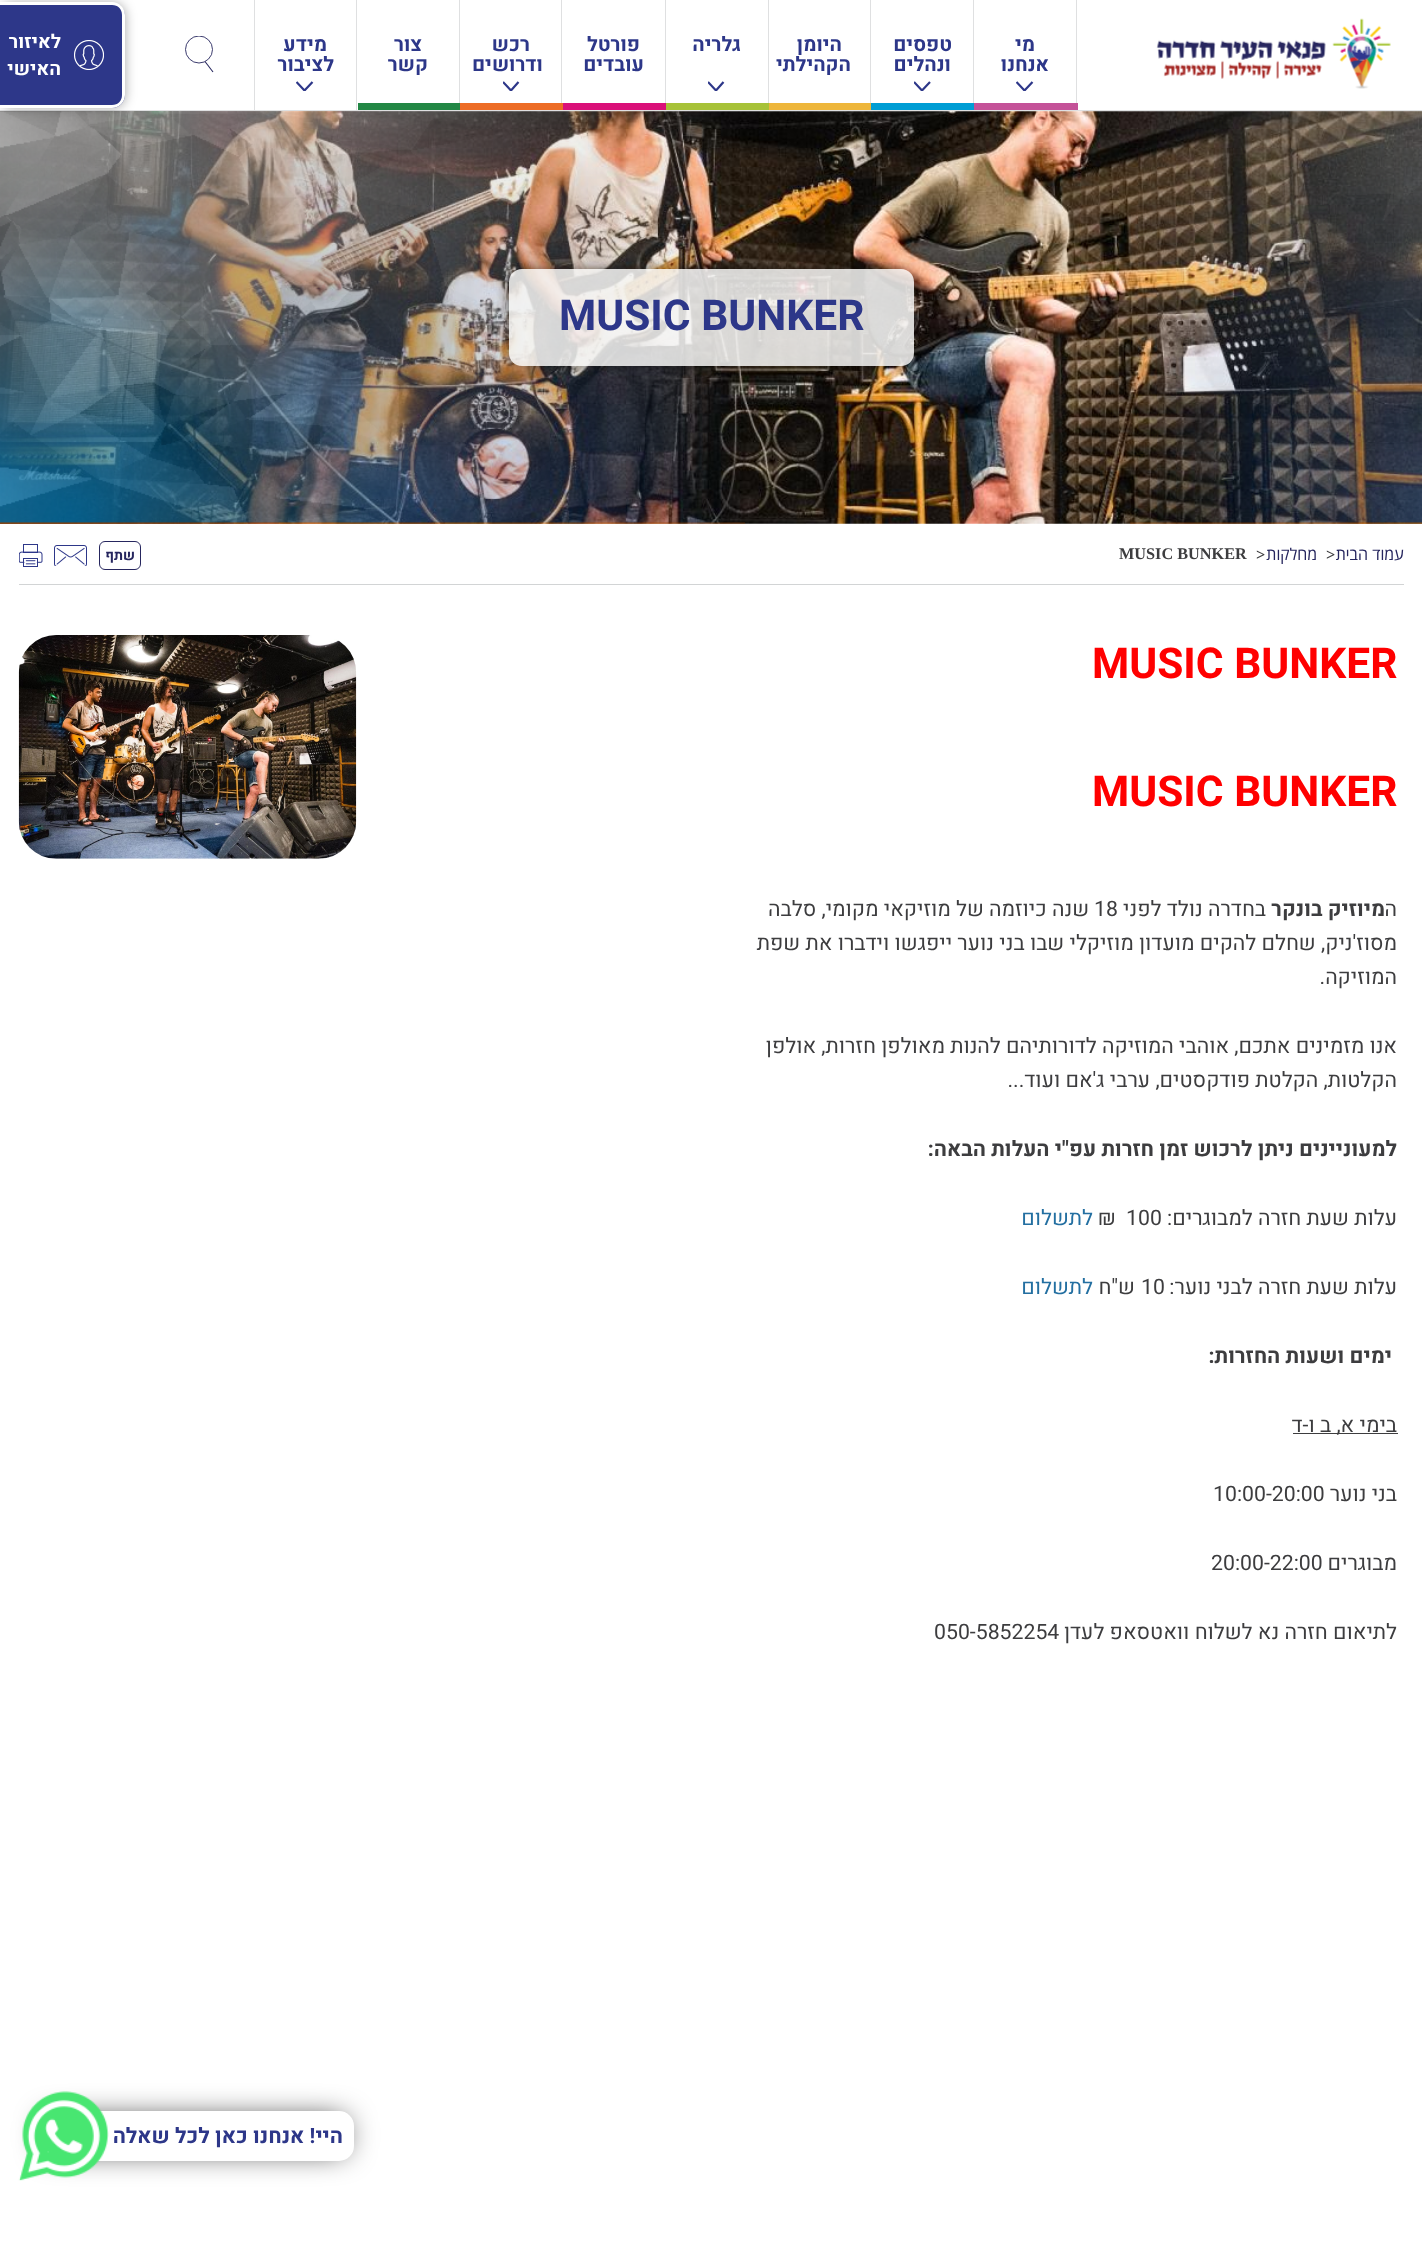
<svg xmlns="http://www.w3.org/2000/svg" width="1422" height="2268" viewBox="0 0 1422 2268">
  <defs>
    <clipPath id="clip1"><rect x="1016" y="81" width="18" height="10"/></clipPath>
    <clipPath id="clip2"><rect x="914" y="81" width="17" height="10"/></clipPath>
    <clipPath id="clip3"><rect x="708" y="81" width="17" height="10"/></clipPath>
    <clipPath id="clip4"><rect x="503" y="81" width="17" height="10"/></clipPath>
    <clipPath id="clip5"><rect x="296" y="81" width="18" height="10"/></clipPath>
    <clipPath id="clip6"><rect x="185" y="36" width="29" height="37"/></clipPath>
    <filter id="blur1" x="-50%" y="-200%" width="200%" height="500%"><feGaussianBlur stdDeviation="6"/></filter>
    <clipPath id="clip7"><path d="M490 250H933V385H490ZM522 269H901C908 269 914 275 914 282V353C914 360 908 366 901 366H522C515 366 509 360 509 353V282C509 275 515 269 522 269Z" clip-rule="evenodd"/></clipPath>
    <filter id="blur2" x="-50%" y="-200%" width="200%" height="500%"><feGaussianBlur stdDeviation="15"/></filter>
  </defs>
  <rect width="100%" height="100%" fill="#ffffff"/>
  <rect x="0" y="110" width="1422" height="1" fill="#dfe0e1"/>
  <image x="1156" y="18" width="235" height="71" href="img1.png"/>
  <rect x="1076" y="0" width="1" height="110" fill="#dfe0e1"/>
  <text x="1035" y="51" font-family="Heebo" font-size="20" font-weight="bold" direction="rtl" fill="#2d3789">מי</text>
  <text x="1049" y="71" font-family="Heebo" font-size="20" font-weight="bold" direction="rtl" fill="#2d3789">אנחנו</text>
  <g clip-path="url(#clip1)">
    <path d="M1016.5 82L1024.5 90.5L1032.5 82" fill="none" stroke="#2d3789" stroke-width="2.2" stroke-linejoin="bevel"/>
  </g>
  <rect x="974" y="103" width="104" height="7" fill="#c45298"/>
  <rect x="973" y="0" width="1" height="110" fill="#dfe0e1"/>
  <text x="952" y="51" font-family="Heebo" font-size="20" font-weight="bold" direction="rtl" fill="#2d3789">טפסים</text>
  <text x="951" y="71" font-family="Heebo" font-size="20" font-weight="bold" direction="rtl" fill="#2d3789">ונהלים</text>
  <g clip-path="url(#clip2)">
    <path d="M914 82L922 90.5L930 82" fill="none" stroke="#2d3789" stroke-width="2.2" stroke-linejoin="bevel"/>
  </g>
  <rect x="871" y="103" width="103" height="7" fill="#009dd4"/>
  <rect x="870" y="0" width="1" height="110" fill="#dfe0e1"/>
  <text x="842" y="51" font-family="Heebo" font-size="20" font-weight="bold" direction="rtl" fill="#2d3789">היומן</text>
  <text x="851" y="71" font-family="Heebo" font-size="20" font-weight="bold" direction="rtl" fill="#2d3789">הקהילתי</text>
  <rect x="769" y="103" width="102" height="7" fill="#eeb63b"/>
  <rect x="768" y="0" width="1" height="110" fill="#dfe0e1"/>
  <text x="741" y="51" font-family="Heebo" font-size="20" font-weight="bold" direction="rtl" fill="#2d3789">גלריה</text>
  <g clip-path="url(#clip3)">
    <path d="M708 82L716 90.5L723.5 82" fill="none" stroke="#2d3789" stroke-width="2.2" stroke-linejoin="bevel"/>
  </g>
  <rect x="666" y="103" width="103" height="7" fill="#a7c238"/>
  <rect x="665" y="0" width="1" height="110" fill="#dfe0e1"/>
  <text x="640" y="51" font-family="Heebo" font-size="20" font-weight="bold" direction="rtl" fill="#2d3789">פורטל</text>
  <text x="644" y="71" font-family="Heebo" font-size="20" font-weight="bold" direction="rtl" fill="#2d3789">עובדים</text>
  <rect x="563" y="103" width="103" height="7" fill="#da1079"/>
  <rect x="561" y="0" width="1" height="110" fill="#dfe0e1"/>
  <text x="530" y="51" font-family="Heebo" font-size="20" font-weight="bold" direction="rtl" fill="#2d3789">רכש</text>
  <text x="543" y="71" font-family="Heebo" font-size="20" font-weight="bold" direction="rtl" fill="#2d3789">ודרושים</text>
  <g clip-path="url(#clip4)">
    <path d="M503 82L511 90.5L518.5 82" fill="none" stroke="#2d3789" stroke-width="2.2" stroke-linejoin="bevel"/>
  </g>
  <rect x="460" y="103" width="103" height="7" fill="#ed6d26"/>
  <rect x="459" y="0" width="1" height="110" fill="#dfe0e1"/>
  <text x="422" y="51" font-family="Heebo" font-size="20" font-weight="bold" direction="rtl" fill="#2d3789">צור</text>
  <text x="428" y="71" font-family="Heebo" font-size="20" font-weight="bold" direction="rtl" fill="#2d3789">קשר</text>
  <rect x="358" y="103" width="102" height="7" fill="#228745"/>
  <rect x="356" y="0" width="1" height="110" fill="#dfe0e1"/>
  <rect x="254" y="0" width="1" height="110" fill="#dfe0e1"/>
  <text x="327" y="51" font-family="Heebo" font-size="20" font-weight="bold" direction="rtl" fill="#2d3789">מידע</text>
  <text x="334" y="71" font-family="Heebo" font-size="20" font-weight="bold" direction="rtl" fill="#2d3789">לציבור</text>
  <g clip-path="url(#clip5)">
    <path d="M296.5 82L304.5 90.5L312.5 82" fill="none" stroke="#2d3789" stroke-width="2.2" stroke-linejoin="bevel"/>
  </g>
  <g clip-path="url(#clip6)">
    <circle cx="199" cy="49.5" r="13.5" fill="none" stroke="#26265e" stroke-width="0.9"/>
  </g>
  <path d="M213 72L205 61.5" fill="none" stroke="#26265e" stroke-width="1.1"/>
  <image x="0" y="111" width="1422" height="413" href="img3.png"/>
  <image x="0" y="111" width="1422" height="413" href="img4.png"/>
  <rect x="0" y="3" width="125" height="105" rx="13" fill="#000000" fill-opacity="0.35" filter="url(#blur1)"/>
  <path d="M0 3H112C119 3 125 9 125 16V95C125 102 119 108 112 108H0Z" fill="#2d3789"/>
  <path d="M0 2H112C119 2 125 8 125 15V95C125 102 119 108 112 108H0ZM0 5H112C118 5 122 9 122 15V95C122 101 118 105 112 105H0Z" fill="#ffffff" fill-rule="evenodd"/>
  <image x="74" y="40" width="30" height="30" href="img2.png"/>
  <text x="61" y="48" font-family="Heebo" font-size="19" font-weight="bold" direction="rtl" fill="#ffffff">לאיזור</text>
  <text x="61" y="75" font-family="Heebo" font-size="19" font-weight="bold" direction="rtl" fill="#ffffff">האישי</text>
  <g clip-path="url(#clip7)">
    <rect x="509" y="269" width="405" height="97" rx="13" fill="#000000" fill-opacity="0.5" filter="url(#blur1)"/>
  </g>
  <rect x="509" y="269" width="405" height="97" rx="13" fill="#f6f6f5" fill-opacity="0.85"/>
  <text x="559" y="330" font-family="Heebo" font-size="42.5" font-weight="bold" fill="#2d3789">MUSIC BUNKER</text>
  <rect x="19" y="584" width="1385" height="1" fill="#d2d4d5"/>
  <text x="1404" y="560" font-family="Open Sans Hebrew" font-size="16.25" direction="rtl" fill="#26265e">עמוד הבית</text>
  <text x="1326" y="560" font-family="Liberation Serif" font-size="16.25" font-weight="bold" fill="#3d3d3f">&gt;</text>
  <text x="1317" y="560" font-family="Open Sans Hebrew" font-size="16.25" direction="rtl" fill="#26265e">מחלקות</text>
  <text x="1256" y="560" font-family="Liberation Serif" font-size="16.25" font-weight="bold" fill="#3d3d3f">&gt;</text>
  <text x="1119" y="559" font-family="Liberation Serif" font-size="16.25" font-weight="bold" fill="#3d3d3f">MUSIC BUNKER</text>
  <rect x="99.5" y="541.5" width="41" height="28" rx="5.5" fill="none" stroke="#26265e"/>
  <text x="135" y="560" font-family="Heebo" font-size="14" font-weight="bold" direction="rtl" fill="#26265e">שתף</text>
  <image x="54" y="545" width="33" height="21" href="img5.png"/>
  <image x="19" y="544" width="24" height="23" href="img6.png"/>
  <text x="1092" y="678" font-family="Heebo" font-size="42.5" font-weight="bold" fill="#ff0000">MUSIC BUNKER</text>
  <text x="1092" y="806" font-family="Heebo" font-size="42.5" font-weight="bold" fill="#ff0000">MUSIC BUNKER</text>
  <text x="1397" y="916" font-family="Heebo" font-size="21.25" direction="rtl" fill="#3d3d3f">ה</text>
  <text x="1385" y="916" font-family="Heebo" font-size="21.25" font-weight="bold" direction="rtl" fill="#3d3d3f">מיוזיק בונקר</text>
  <text x="1266" y="916" font-family="Heebo" font-size="21.25" direction="rtl" fill="#3d3d3f">בחדרה נולד לפני</text>
  <text x="1094" y="916" font-family="Heebo" font-size="21.25" fill="#3d3d3f">18</text>
  <text x="1089" y="916" font-family="Heebo" font-size="21.25" direction="rtl" fill="#3d3d3f">שנה כיוזמה של מוזיקאי מקומי, סלבה</text>
  <text x="1397" y="950" font-family="Heebo" font-size="21.25" direction="rtl" fill="#3d3d3f">מסוז'ניק, שחלם להקים מועדון מוזיקלי שבו בני נוער ייפגשו וידברו את שפת</text>
  <text x="1397" y="984" font-family="Heebo" font-size="21.25" direction="rtl" fill="#3d3d3f">המוזיקה.</text>
  <text x="1397" y="1053" font-family="Heebo" font-size="21.25" direction="rtl" fill="#3d3d3f">אנו מזמינים אתכם, אוהבי המוזיקה לדורותיהם להנות מאולפן חזרות, אולפן</text>
  <text x="1397" y="1087" font-family="Heebo" font-size="21.25" direction="rtl" fill="#3d3d3f">הקלטות, הקלטת פודקסטים, ערבי ג'אם ועוד...</text>
  <text x="1397" y="1156" font-family="Heebo" font-size="21.25" font-weight="bold" direction="rtl" fill="#3d3d3f">למעוניינים ניתן לרכוש זמן חזרות עפ"י העלות הבאה:</text>
  <text x="1397" y="1225" font-family="Heebo" font-size="21.25" direction="rtl" fill="#3d3d3f">עלות שעת חזרה למבוגרים:</text>
  <text x="1126" y="1225" font-family="Heebo" font-size="21.25" fill="#3d3d3f">100</text>
  <text x="1098" y="1225" font-family="Heebo" font-size="21.25" fill="#3d3d3f">₪</text>
  <text x="1093" y="1225" font-family="Heebo" font-size="21.25" direction="rtl" fill="#236fa1">לתשלום</text>
  <text x="1397" y="1294" font-family="Heebo" font-size="21.25" direction="rtl" fill="#3d3d3f">עלות שעת חזרה לבני נוער:</text>
  <text x="1141" y="1294" font-family="Heebo" font-size="21.25" fill="#3d3d3f">10</text>
  <text x="1135" y="1294" font-family="Heebo" font-size="21.25" direction="rtl" fill="#3d3d3f">ש"ח</text>
  <text x="1093" y="1294" font-family="Heebo" font-size="21.25" direction="rtl" fill="#236fa1">לתשלום</text>
  <text x="1392" y="1363" font-family="Heebo" font-size="21.25" font-weight="bold" direction="rtl" fill="#3d3d3f">ימים ושעות החזרות:</text>
  <rect x="1293" y="1433" width="105" height="1" fill="#3d3d3f"/>
  <text x="1397" y="1432" font-family="Heebo" font-size="21.25" direction="rtl" fill="#3d3d3f">בימי א, ב ו-ד</text>
  <text x="1397" y="1501" font-family="Heebo" font-size="21.25" direction="rtl" fill="#3d3d3f">בני נוער</text>
  <text x="1213" y="1501" font-family="Heebo" font-size="21.25" fill="#3d3d3f">10:00-20:00</text>
  <text x="1397" y="1570" font-family="Heebo" font-size="21.25" direction="rtl" fill="#3d3d3f">מבוגרים</text>
  <text x="1211" y="1570" font-family="Heebo" font-size="21.25" fill="#3d3d3f">20:00-22:00</text>
  <text x="1397" y="1639" font-family="Heebo" font-size="21.25" direction="rtl" fill="#3d3d3f">לתיאום חזרה נא לשלוח וואטסאפ לעדן</text>
  <text x="934" y="1639" font-family="Heebo" font-size="21.25" fill="#3d3d3f">050-5852254</text>
  <image x="18" y="635" width="339" height="224" href="img7.png"/>
  <rect x="46" y="2119" width="299" height="32" rx="6" fill="#000000" fill-opacity="0.88" filter="url(#blur2)"/>
  <rect x="38" y="2111" width="316" height="50" rx="15" fill="#ffffff"/>
  <text x="343" y="2143" font-family="Heebo" font-size="21.25" font-weight="bold" direction="rtl" fill="#2d3789">היי! אנחנו כאן לכל שאלה</text>
  <image x="18" y="2091" width="91" height="90" href="img8.png"/>
</svg>
